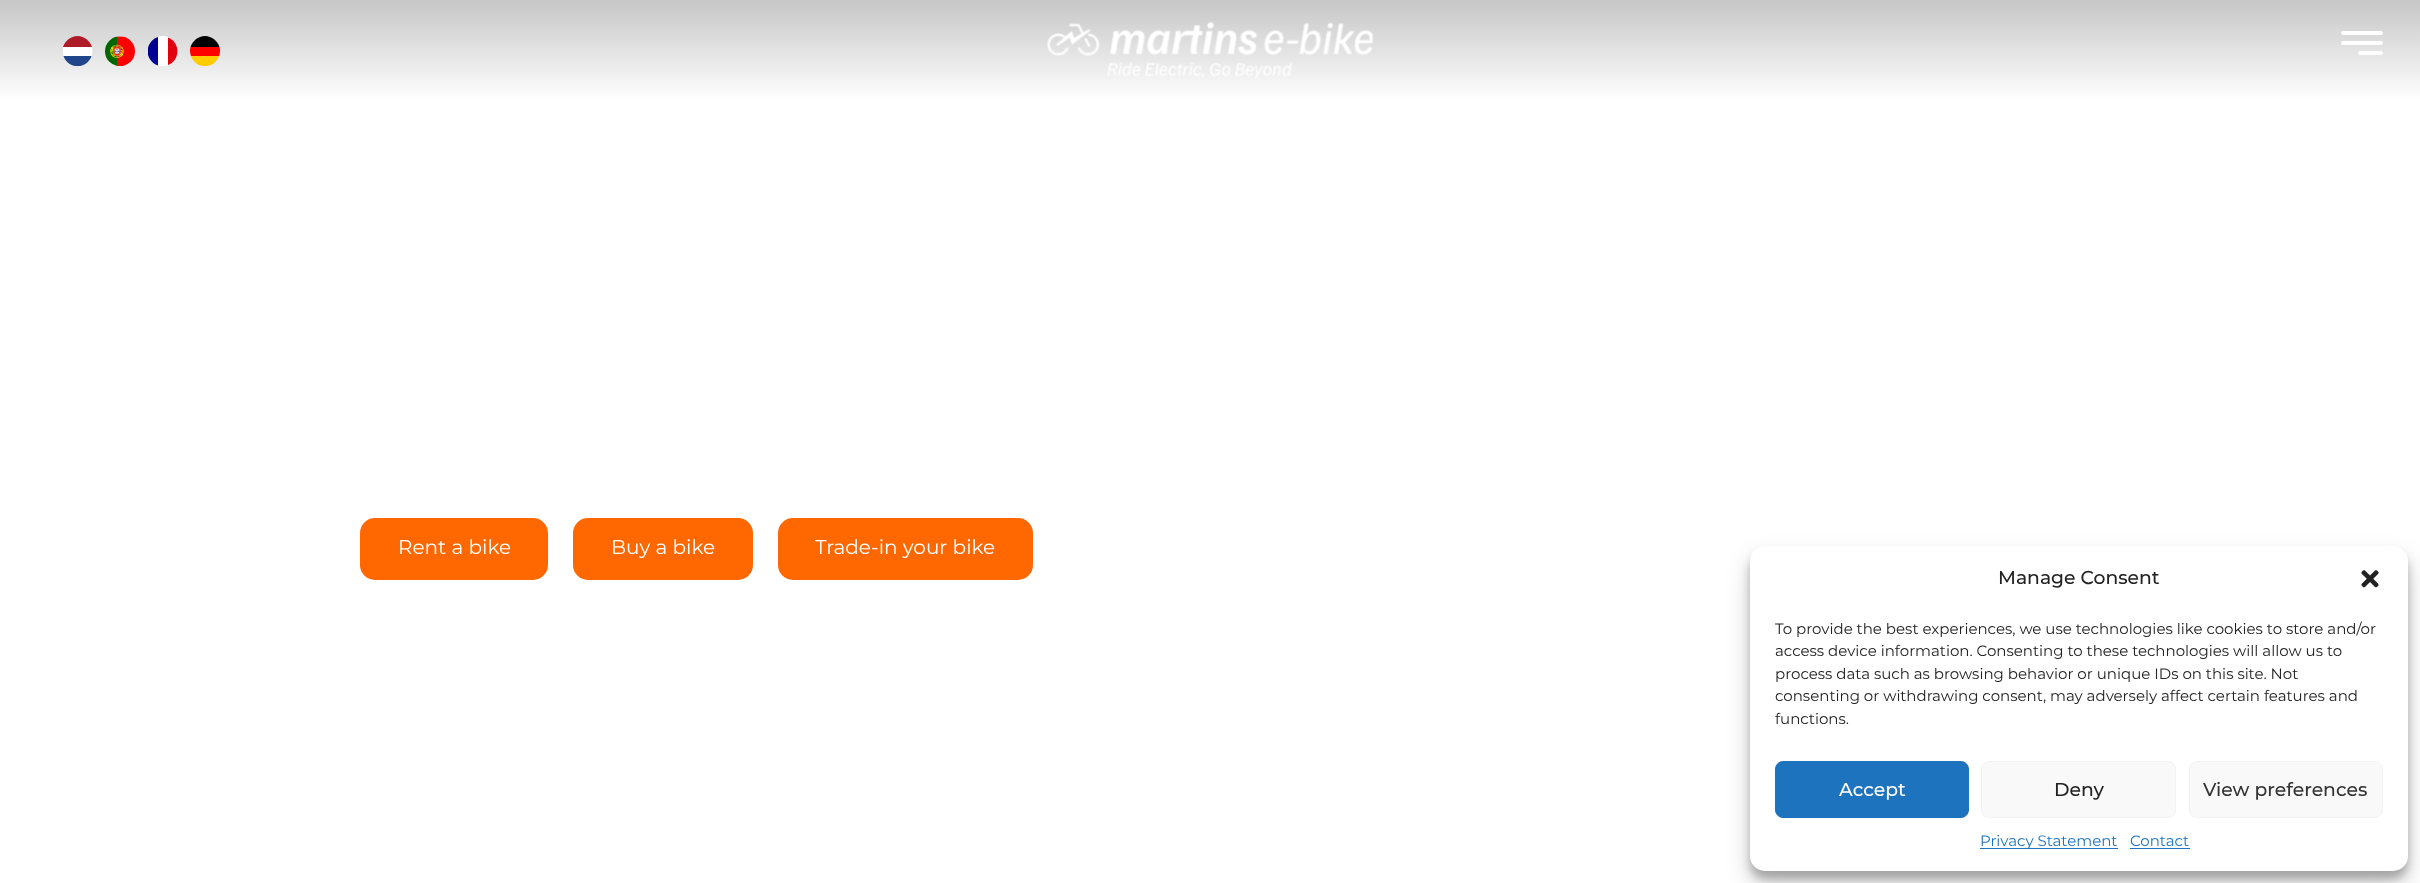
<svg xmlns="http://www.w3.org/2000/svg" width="2420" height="883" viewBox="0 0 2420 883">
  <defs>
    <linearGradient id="g1" gradientUnits="userSpaceOnUse" x1="1210" y1="101" x2="1210" y2="0"><stop offset="0" stop-color="#ffffff"/><stop offset="1" stop-color="#c6c6c6"/></linearGradient>
    <clipPath id="clip1"><rect x="63" y="36" width="30" height="30"/></clipPath>
    <filter id="blur1" x="-50%" y="-200%" width="200%" height="500%"><feGaussianBlur stdDeviation="4"/></filter>
    <filter id="blur2" x="-50%" y="-200%" width="200%" height="500%"><feGaussianBlur stdDeviation="12.5"/></filter>
  </defs>
  <rect width="100%" height="100%" fill="#ffffff"/>
  <rect x="0" y="0" width="2420" height="97" fill="url(#g1)"/>
  <path d="M77.5 36C84.5 36 90 41 92 47H63C65 41 70.5 36 77.5 36Z" fill="#ae1c28"/>
  <g clip-path="url(#clip1)">
    <path d="M63 47.5V47H92C93 50 92.5 53 91.5 56H63.5C62.5 53.5 63 50 63 47.5Z" fill="#ffffff"/>
  </g>
  <path d="M75 66C69.5 65 65 61 63.5 56H91.5C90 61 85.5 65 80 66Z" fill="#21468b"/>
  <image x="105" y="36" width="30" height="30" href="img1.png"/>
  <path d="M162.5 36C180.5 36 183 62.5 165 66H161.5C155.5 66 149.5 61.5 148 55V47.5C149.5 41 156 36 162.5 36Z" fill="#ffffff"/>
  <path d="M148 55V47.5C149.5 42.5 153 38.5 158 37V65.5C153 64 149.5 60 148 55Z" fill="#000091"/>
  <path d="M168 65V37.5C180.5 42 180.5 60.5 168 65Z" fill="#e1000f"/>
  <path d="M202.5 66C197 65 192.5 61 191 56H219C217.5 61 213 65 207.5 66Z" fill="#ffcc00"/>
  <path d="M205 36C212 36 217.5 41 219.5 47H190.5C192.5 41 198 36 205 36Z" fill="#000001"/>
  <path d="M191 56C190 53 189.5 50 190.5 47H219.5C220.5 50 220 53 219 56Z" fill="#ff0000"/>
  <image x="1047" y="22" width="326" height="57" href="img2.png"/>
  <rect x="2341" y="31" width="42" height="4" rx="2" fill="#ffffff"/>
  <rect x="2341" y="41" width="42" height="4" rx="2" fill="#ffffff"/>
  <rect x="2358" y="51" width="25" height="4" rx="2" fill="#ffffff"/>
  <rect x="360" y="518" width="188" height="62" rx="15" fill="#ff6800"/>
  <text x="398" y="554" font-family="Montserrat" font-size="20" fill="#ffffff">Rent a bike</text>
  <rect x="573" y="518" width="180" height="62" rx="15" fill="#ff6800"/>
  <text x="611" y="554" font-family="Montserrat" font-size="20" fill="#ffffff">Buy a bike</text>
  <rect x="778" y="518" width="255" height="62" rx="15" fill="#ff6800"/>
  <text x="815" y="554" font-family="Montserrat" font-size="20" fill="#ffffff">Trade-in your bike</text>
  <rect x="1750" y="554" width="658" height="325" rx="15" fill="#000000" fill-opacity="0.23" filter="url(#blur1)"/>
  <rect x="1750" y="559" width="658" height="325" rx="15" fill="#000000" fill-opacity="0.19" filter="url(#blur2)"/>
  <rect x="1750" y="546" width="658" height="325" rx="15" fill="#ffffff"/>
  <text x="1998" y="584" font-family="Montserrat" font-size="18.75" font-weight="500" fill="#222222">Manage Consent</text>
  <image x="2361" y="570" width="18" height="18" href="img3.png"/>
  <text x="1775" y="634" font-family="Montserrat" font-size="15" fill="#222222">To provide the best experiences, we use technologies like cookies to store and/or</text>
  <text x="1775" y="656" font-family="Montserrat" font-size="15" fill="#222222">access device information. Consenting to these technologies will allow us to</text>
  <text x="1775" y="679" font-family="Montserrat" font-size="15" fill="#222222">process data such as browsing behavior or unique IDs on this site. Not</text>
  <text x="1775" y="701" font-family="Montserrat" font-size="15" fill="#222222">consenting or withdrawing consent, may adversely affect certain features and</text>
  <text x="1775" y="724" font-family="Montserrat" font-size="15" fill="#222222">functions.</text>
  <rect x="1775.5" y="761.5" width="193" height="56" rx="7.5" fill="#1e73be" stroke="#1e73be"/>
  <text x="1839" y="796" font-family="Montserrat" font-size="18.75" font-weight="500" fill="#ffffff">Accept</text>
  <rect x="1981.5" y="761.5" width="194" height="56" rx="7.5" fill="#f9f9f9" stroke="#f2f2f2"/>
  <text x="2054" y="796" font-family="Montserrat" font-size="18.75" font-weight="500" fill="#222222">Deny</text>
  <rect x="2189.5" y="761.5" width="193" height="56" rx="7.5" fill="#f9f9f9" stroke="#f2f2f2"/>
  <text x="2203" y="796" font-family="Montserrat" font-size="18.75" font-weight="500" fill="#333333">View preferences</text>
  <rect x="1980" y="848" width="138" height="1" fill="#1e73be"/>
  <text x="1980" y="846" font-family="Montserrat" font-size="15" fill="#1e73be">Privacy Statement</text>
  <text x="2130" y="846" font-family="Montserrat" font-size="15" fill="#1e73be">Contact</text>
  <rect x="2130" y="848" width="60" height="1" fill="#1e73be"/>
</svg>
